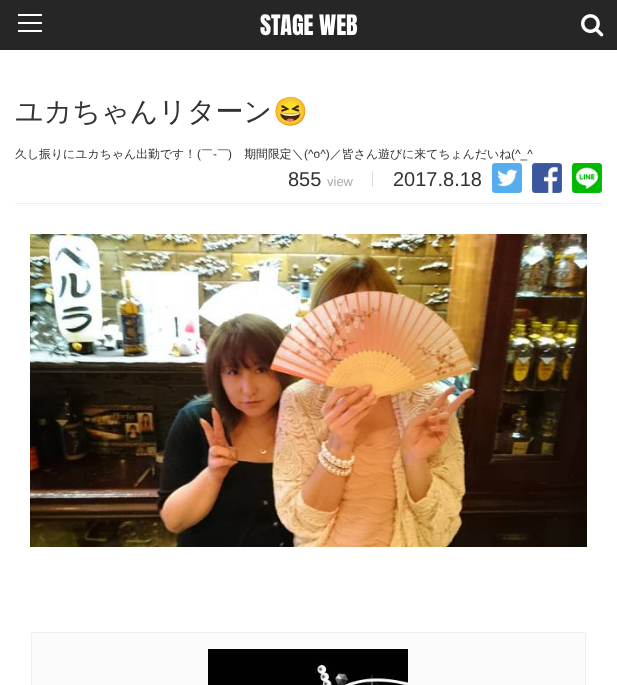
<svg xmlns="http://www.w3.org/2000/svg" width="617" height="685" viewBox="0 0 617 685">
  <rect width="100%" height="100%" fill="#ffffff"/>
  <rect x="0" y="0" width="617" height="50" fill="#262626"/>
  <rect x="18" y="22" width="24" height="2" fill="#ffffff"/>
  <rect x="18" y="14" width="24" height="2" fill="#ffffff"/>
  <rect x="18" y="30" width="24" height="2" fill="#ffffff"/>
  <text x="260" y="35" font-family="Anton" font-size="24" fill="#ffffff">STAGE WEB</text>
  <image x="581" y="14" width="23" height="23" href="img1.png"/>
  <rect x="15" y="203" width="587" height="1" fill="#eeeeee"/>
  <text x="15" y="121" font-family="WenQuanYi Zen Hei" font-size="28" font-weight="500" fill="#333333">ユカちゃんリターン</text>
  <text x="273" y="121" font-family="Noto Color Emoji" font-size="28" fill="#333333">😆</text>
  <text x="15" y="158" font-family="WenQuanYi Zen Hei" font-size="11.9" font-weight="500" fill="#333333">久し振りにユカちゃん出勤です！</text>
  <text x="197" y="158" font-family="Liberation Sans" font-size="11.9" fill="#333333">(</text>
  <text x="201" y="158" font-family="WenQuanYi Zen Hei" font-size="11.9" font-weight="500" fill="#333333">￣</text>
  <text x="213" y="158" font-family="Liberation Sans" font-size="11.9" fill="#333333">-</text>
  <text x="217" y="158" font-family="WenQuanYi Zen Hei" font-size="11.9" font-weight="500" fill="#333333">￣</text>
  <text x="228" y="158" font-family="Liberation Sans" font-size="11.9" fill="#333333">)</text>
  <text x="232" y="158" font-family="WenQuanYi Zen Hei" font-size="11.9" font-weight="500" fill="#333333">ゞ期間限定＼</text>
  <text x="304" y="158" font-family="Liberation Sans" font-size="11.9" fill="#333333">(^o^)</text>
  <text x="330" y="158" font-family="WenQuanYi Zen Hei" font-size="11.9" font-weight="500" fill="#333333">／皆さん遊びに来てちょんだいね</text>
  <text x="511" y="158" font-family="Liberation Sans" font-size="11.9" fill="#333333">(^_^</text>
  <text x="288" y="186" font-family="Liberation Sans" font-size="20" fill="#333333">855</text>
  <text x="327" y="186" font-family="Liberation Sans" font-size="13" fill="#aaaaaa">view</text>
  <rect x="372" y="171" width="1" height="16" fill="#dddddd"/>
  <text x="393" y="186" font-family="Liberation Sans" font-size="20" fill="#333333">2017.8.18</text>
  <image x="492" y="163" width="30" height="30" href="img2.png"/>
  <image x="532" y="163" width="30" height="30" href="img3.png"/>
  <image x="572" y="163" width="30" height="30" href="img4.png"/>
  <image x="30" y="234" width="557" height="313" href="img5.png"/>
  <rect x="31.5" y="632.5" width="554" height="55" rx="1.5" fill="#fcfbfb" stroke="#eeeeee"/>
  <image x="208" y="649" width="200" height="36" href="img6.png"/>
</svg>
